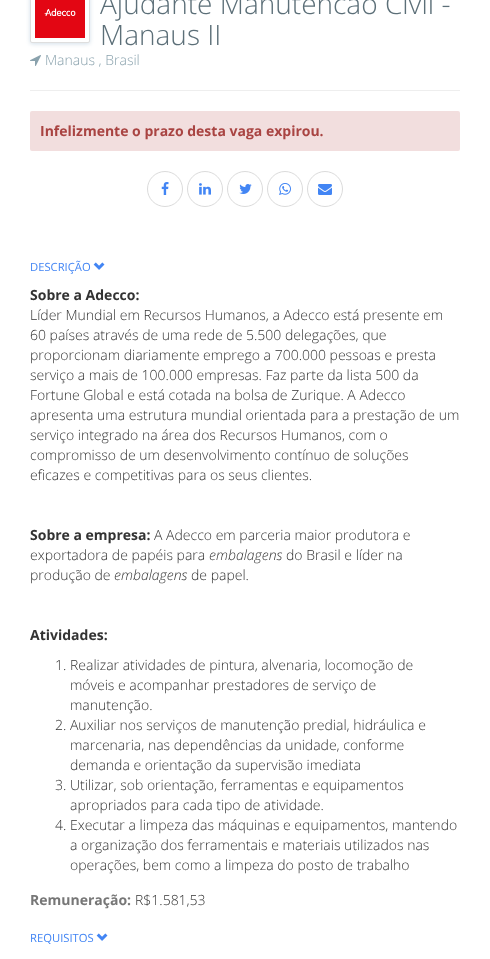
<svg xmlns="http://www.w3.org/2000/svg" width="490" height="959" viewBox="0 0 490 959">
  <defs>
    <filter id="blur1" x="-50%" y="-200%" width="200%" height="500%"><feGaussianBlur stdDeviation="2"/></filter>
  </defs>
  <rect width="100%" height="100%" fill="#ffffff"/>
  <rect x="30" y="-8" width="60" height="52" rx="2" fill="#d4e0ea" filter="url(#blur1)"/>
  <rect x="30.5" y="-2.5" width="59" height="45" rx="1.5" fill="#ffffff" stroke="#dedede"/>
  <image x="35" y="0" width="50" height="38" href="img1.png"/>
  <text x="100" y="14" font-family="Open Sans" font-size="28" font-weight="300" fill="#5c6f78">Ajudante Manutencao Civil -</text>
  <text x="100" y="45" font-family="Open Sans" font-size="28" font-weight="300" fill="#5c6f78">Manaus II</text>
  <image x="30" y="55" width="11" height="11" href="img2.png"/>
  <text x="45" y="65" font-family="Open Sans" font-size="14" font-weight="300" fill="#8aa2ad">Manaus , Brasil</text>
  <rect x="30" y="90" width="430" height="1" fill="#eeeeee"/>
  <rect x="30" y="111" width="430" height="40" rx="2" fill="#f2dede"/>
  <text x="40" y="136" font-family="Open Sans" font-size="14" font-weight="bold" fill="#a94442">Infelizmente o prazo desta vaga expirou.</text>
  <circle cx="165" cy="189" r="17.5" fill="none" stroke="#dbdbdb"/>
  <image x="161" y="182" width="8" height="13" href="img3.png"/>
  <circle cx="205" cy="189" r="17.5" fill="none" stroke="#dbdbdb"/>
  <image x="199" y="183" width="12" height="12" href="img4.png"/>
  <circle cx="245" cy="189" r="17.5" fill="none" stroke="#dbdbdb"/>
  <image x="239" y="184" width="13" height="10" href="img5.png"/>
  <circle cx="285" cy="189" r="17.5" fill="none" stroke="#dbdbdb"/>
  <image x="279" y="183" width="12" height="12" href="img6.png"/>
  <circle cx="325" cy="189" r="17.5" fill="none" stroke="#dbdbdb"/>
  <image x="318" y="184" width="14" height="11" href="img7.png"/>
  <text x="30" y="271" font-family="Open Sans" font-size="11.25" fill="#4285f4">DESCRIÇÃO</text>
  <image x="93" y="262" width="12" height="8" href="img8.png"/>
  <text x="30" y="300" font-family="Open Sans" font-size="14" font-weight="bold" fill="#333333">Sobre a Adecco:</text>
  <text x="30" y="320" font-family="Open Sans" font-size="14" font-weight="300" fill="#333333">Líder Mundial em Recursos Humanos, a Adecco está presente em</text>
  <text x="30" y="340" font-family="Open Sans" font-size="14" font-weight="300" fill="#333333">60 países através de uma rede de 5.500 delegações, que</text>
  <text x="30" y="360" font-family="Open Sans" font-size="14" font-weight="300" fill="#333333">proporcionam diariamente emprego a 700.000 pessoas e presta</text>
  <text x="30" y="380" font-family="Open Sans" font-size="14" font-weight="300" fill="#333333">serviço a mais de 100.000 empresas. Faz parte da lista 500 da</text>
  <text x="30" y="400" font-family="Open Sans" font-size="14" font-weight="300" fill="#333333">Fortune Global e está cotada na bolsa de Zurique. A Adecco</text>
  <text x="30" y="420" font-family="Open Sans" font-size="14" font-weight="300" fill="#333333">apresenta uma estrutura mundial orientada para a prestação de um</text>
  <text x="30" y="440" font-family="Open Sans" font-size="14" font-weight="300" fill="#333333">serviço integrado na área dos Recursos Humanos, com o</text>
  <text x="30" y="460" font-family="Open Sans" font-size="14" font-weight="300" fill="#333333">compromisso de um desenvolvimento contínuo de soluções</text>
  <text x="30" y="480" font-family="Open Sans" font-size="14" font-weight="300" fill="#333333">eficazes e competitivas para os seus clientes.</text>
  <text x="30" y="540" font-family="Open Sans" font-size="14" font-weight="bold" fill="#333333">Sobre a empresa:</text>
  <text x="154" y="540" font-family="Open Sans" font-size="14" font-weight="300" fill="#333333">A Adecco em parceria maior produtora e</text>
  <text x="30" y="560" font-family="Open Sans" font-size="14" font-weight="300" fill="#333333">exportadora de papéis para</text>
  <text x="209" y="560" font-family="Open Sans" font-size="14" font-weight="300" font-style="italic" fill="#333333">embalagens</text>
  <text x="286" y="560" font-family="Open Sans" font-size="14" font-weight="300" fill="#333333">do Brasil e líder na</text>
  <text x="30" y="580" font-family="Open Sans" font-size="14" font-weight="300" fill="#333333">produção de</text>
  <text x="114" y="580" font-family="Open Sans" font-size="14" font-weight="300" font-style="italic" fill="#333333">embalagens</text>
  <text x="191" y="580" font-family="Open Sans" font-size="14" font-weight="300" fill="#333333">de papel.</text>
  <text x="30" y="640" font-family="Open Sans" font-size="14" font-weight="bold" fill="#333333">Atividades:</text>
  <text x="55" y="670" font-family="Open Sans" font-size="14" font-weight="300" fill="#333333">1. Realizar atividades de pintura, alvenaria, locomoção de</text>
  <text x="70" y="690" font-family="Open Sans" font-size="14" font-weight="300" fill="#333333">móveis e acompanhar prestadores de serviço de</text>
  <text x="70" y="710" font-family="Open Sans" font-size="14" font-weight="300" fill="#333333">manutenção.</text>
  <text x="55" y="730" font-family="Open Sans" font-size="14" font-weight="300" fill="#333333">2. Auxiliar nos serviços de manutenção predial, hidráulica e</text>
  <text x="70" y="750" font-family="Open Sans" font-size="14" font-weight="300" fill="#333333">marcenaria, nas dependências da unidade, conforme</text>
  <text x="70" y="770" font-family="Open Sans" font-size="14" font-weight="300" fill="#333333">demanda e orientação da supervisão imediata</text>
  <text x="55" y="790" font-family="Open Sans" font-size="14" font-weight="300" fill="#333333">3. Utilizar, sob orientação, ferramentas e equipamentos</text>
  <text x="70" y="810" font-family="Open Sans" font-size="14" font-weight="300" fill="#333333">apropriados para cada tipo de atividade.</text>
  <text x="55" y="830" font-family="Open Sans" font-size="14" font-weight="300" fill="#333333">4. Executar a limpeza das máquinas e equipamentos, mantendo</text>
  <text x="70" y="850" font-family="Open Sans" font-size="14" font-weight="300" fill="#333333">a organização dos ferramentais e materiais utilizados nas</text>
  <text x="70" y="870" font-family="Open Sans" font-size="14" font-weight="300" fill="#333333">operações, bem como a limpeza do posto de trabalho</text>
  <text x="30" y="905" font-family="Open Sans" font-size="14" font-weight="bold" fill="#777777">Remuneração:</text>
  <text x="135" y="905" font-family="Open Sans" font-size="14" font-weight="300" fill="#333333">R$1.581,53</text>
  <text x="30" y="942" font-family="Open Sans" font-size="11.25" fill="#4285f4">REQUISITOS</text>
  <image x="96" y="933" width="12" height="8" href="img8.png"/>
</svg>
